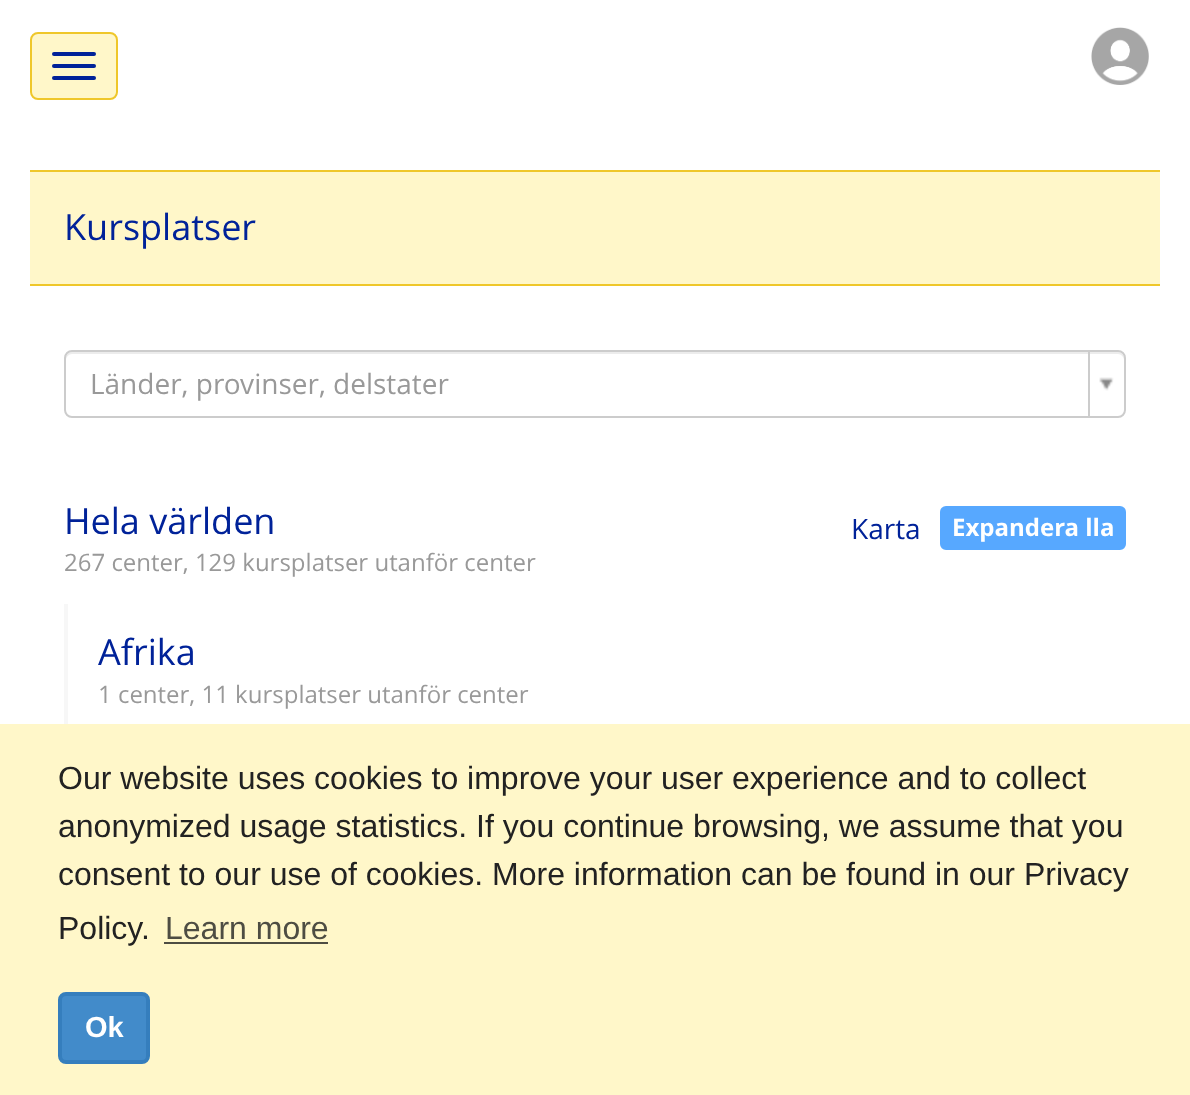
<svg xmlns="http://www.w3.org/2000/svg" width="1190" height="1095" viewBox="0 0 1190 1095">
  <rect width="100%" height="100%" fill="#ffffff"/>
  <rect x="31" y="33" width="86" height="66" rx="7" fill="#fff7c9" stroke="#efc72a" stroke-width="2"/>
  <rect x="52" y="52" width="44" height="4" rx="2" fill="#002299"/>
  <rect x="52" y="64" width="44" height="4" rx="2" fill="#002299"/>
  <rect x="52" y="76" width="44" height="4" rx="2" fill="#002299"/>
  <image x="1091" y="27" width="58" height="58" href="img1.png"/>
  <rect x="30" y="172" width="1130" height="112" fill="#fff7c9"/>
  <rect x="30" y="170" width="1130" height="2" fill="#efc72a"/>
  <rect x="30" y="284" width="1130" height="2" fill="#efc72a"/>
  <text x="64" y="240" font-family="Open Sans" font-size="36" fill="#002299">Kursplatser</text>
  <path d="M72 354H1118C1121 354 1124 357 1124 360V358C1124 355 1121 352 1118 352H72C69 352 66 355 66 358V360C66 357 69 354 72 354Z" fill="#ececec"/>
  <rect x="65" y="351" width="1060" height="66" rx="7" fill="none" stroke="#cccccc" stroke-width="2"/>
  <text x="90" y="394" font-family="Open Sans" font-size="28" fill="#999999">Länder, provinser, delstater</text>
  <rect x="1088" y="352" width="2" height="64" fill="#cccccc"/>
  <image x="1099" y="377" width="15" height="14" href="img2.png"/>
  <text x="64" y="534" font-family="Open Sans" font-size="36" fill="#002299">Hela världen</text>
  <text x="64" y="571" font-family="Open Sans" font-size="24" fill="#999999">267 center, 129 kursplatser utanför center</text>
  <text x="851" y="539" font-family="Open Sans" font-size="28" fill="#002299">Karta</text>
  <rect x="941" y="507" width="184" height="42" rx="5" fill="#57a8ff" stroke="#57a8ff" stroke-width="2"/>
  <text x="952" y="536" font-family="Open Sans" font-size="24" font-weight="bold" fill="#ffffff">Expandera lla</text>
  <rect x="64" y="604" width="4" height="120" fill="#f7f7f7"/>
  <text x="98" y="665" font-family="Open Sans" font-size="36" fill="#002299">Afrika</text>
  <text x="98" y="703" font-family="Open Sans" font-size="24" fill="#999999">1 center, 11 kursplatser utanför center</text>
  <rect x="0" y="724" width="1190" height="371" fill="#fff7c9"/>
  <text x="58" y="789" font-family="Liberation Sans" font-size="32" fill="#222222">Our website uses cookies to improve your user experience and to collect</text>
  <text x="58" y="837" font-family="Liberation Sans" font-size="32" fill="#222222">anonymized usage statistics. If you continue browsing, we assume that you</text>
  <text x="58" y="885" font-family="Liberation Sans" font-size="32" fill="#222222">consent to our use of cookies. More information can be found in our Privacy</text>
  <text x="58" y="939" font-family="Liberation Sans" font-size="32" fill="#222222">Policy.</text>
  <text x="165" y="939" font-family="Liberation Sans" font-size="32" fill="#4e4d43">Learn more</text>
  <rect x="164" y="942" width="164" height="2" fill="#4e4d43"/>
  <rect x="60" y="994" width="88" height="68" rx="6" fill="#428bca" stroke="#357ebd" stroke-width="4"/>
  <text x="85" y="1037" font-family="Liberation Sans" font-size="29" font-weight="bold" fill="#ffffff">Ok</text>
</svg>
